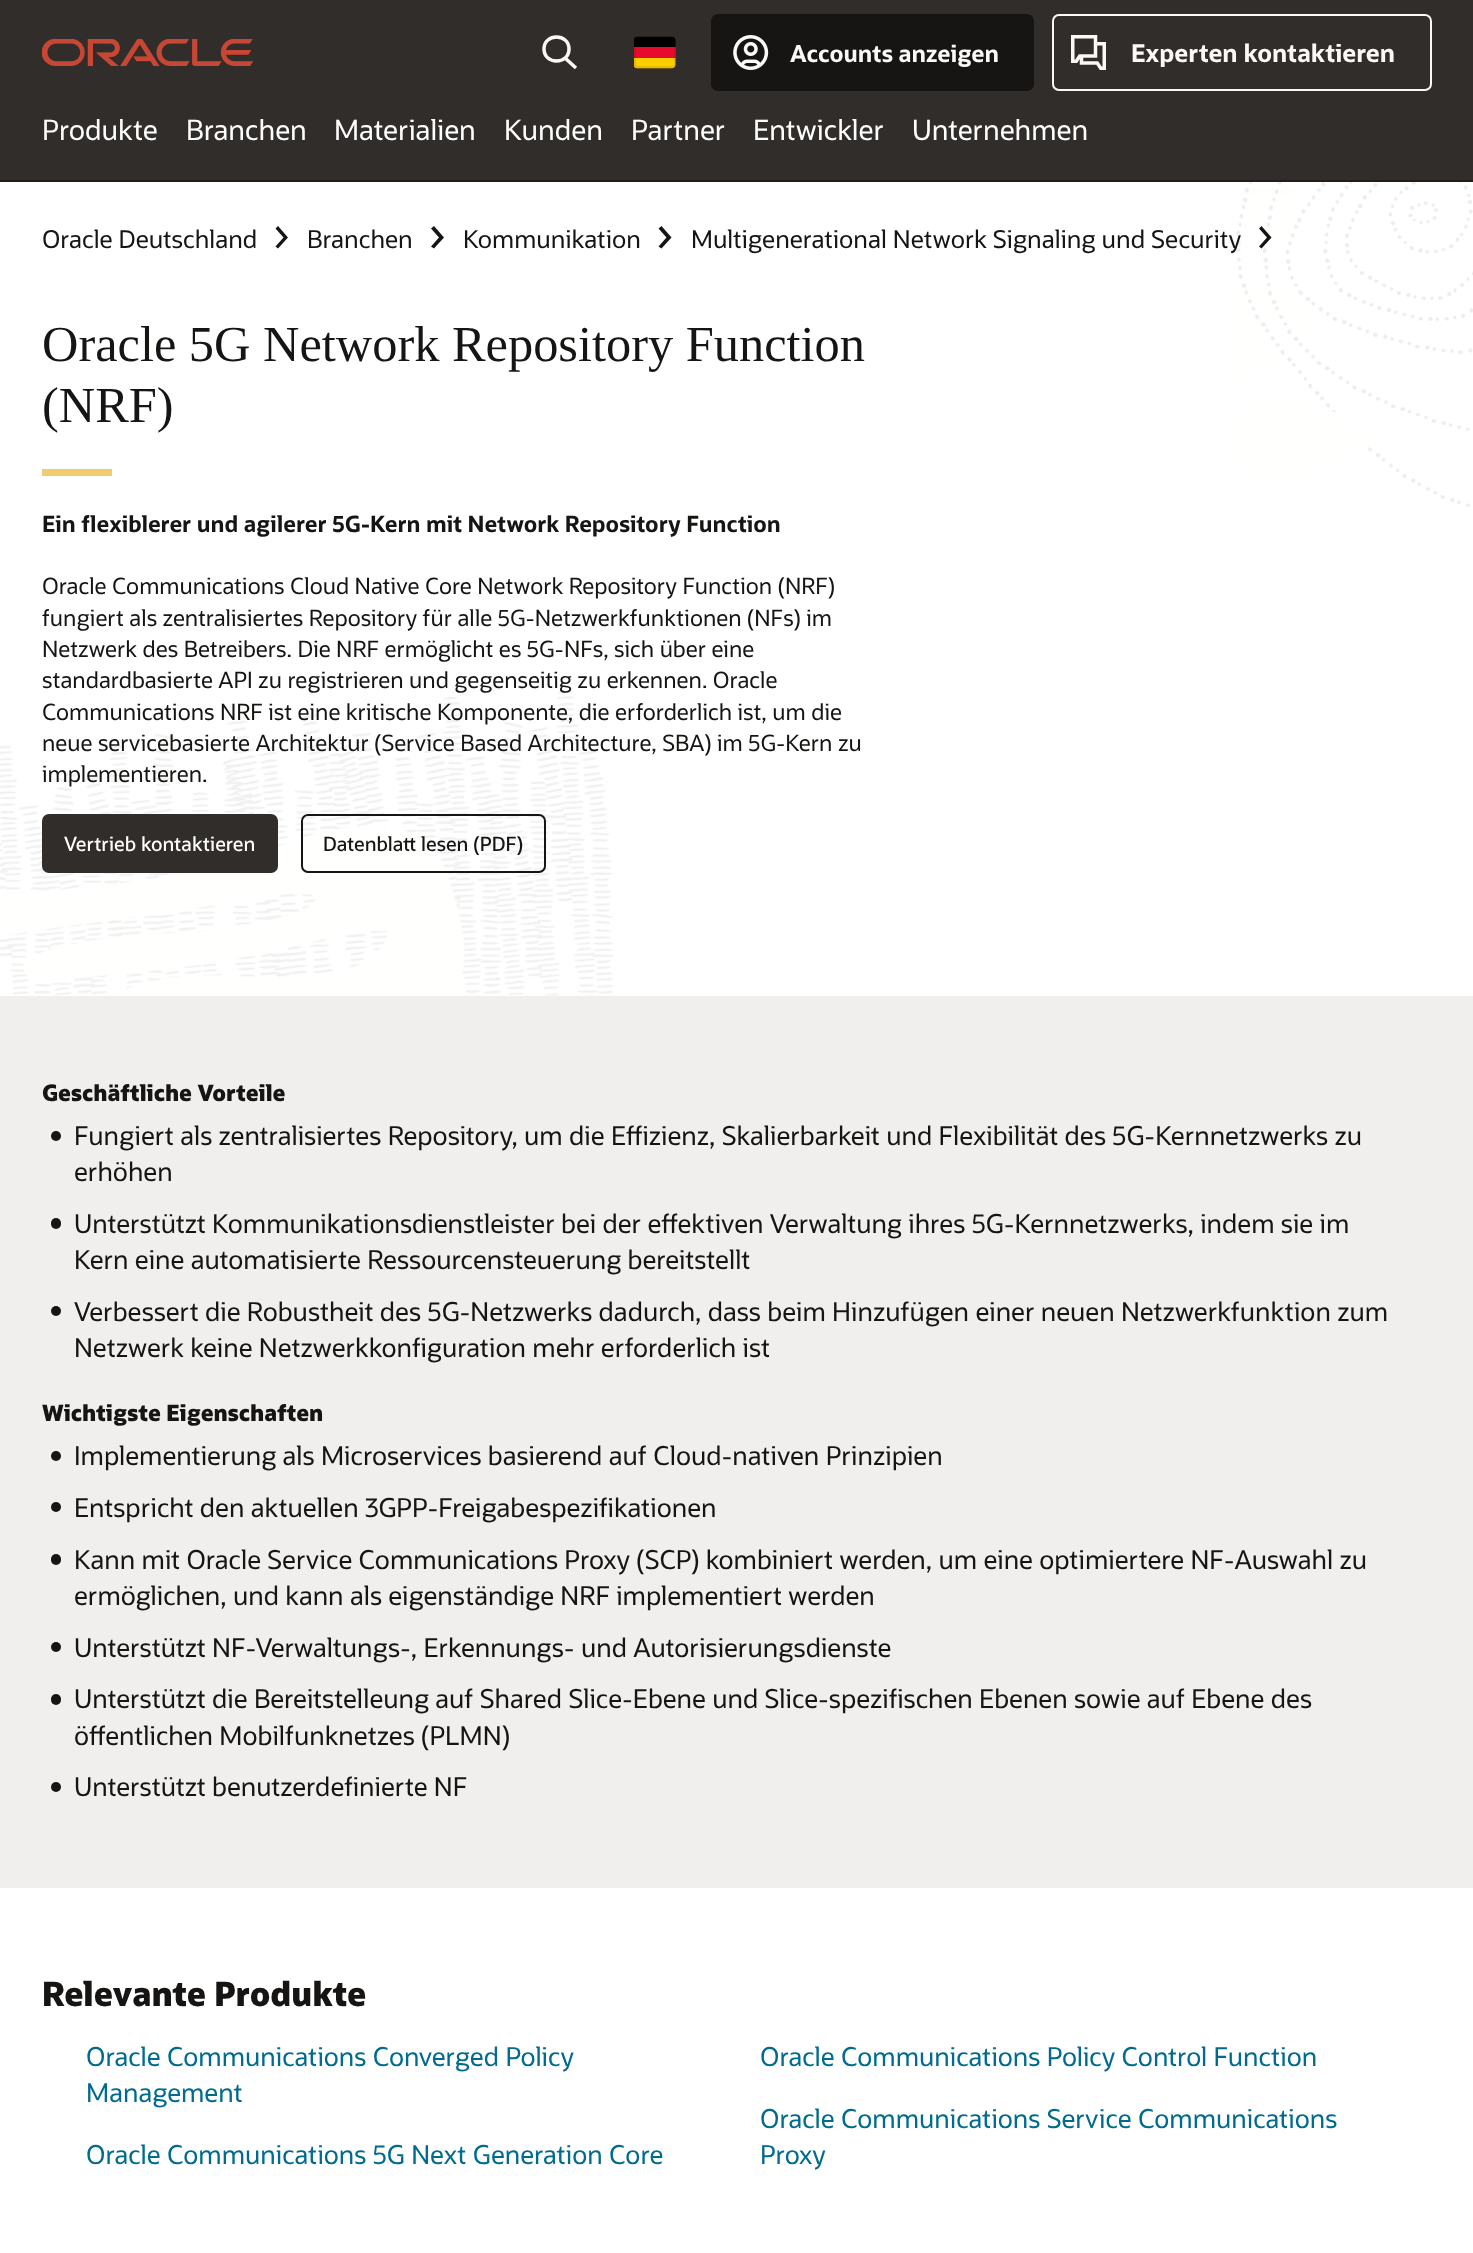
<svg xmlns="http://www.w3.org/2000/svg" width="1473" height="2253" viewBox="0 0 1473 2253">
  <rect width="100%" height="100%" fill="#ffffff"/>
  <rect x="0" y="0" width="1473" height="180" fill="#312d2a"/>
  <image x="42" y="39" width="212" height="27" href="img1.png"/>
  <path d="M565 58L576 68M569 49C569 65 544 65 544 49C544 33 569 33 569 49Z" fill="none" stroke="#fbf9f8" stroke-width="3.5"/>
  <image x="634" y="36" width="42" height="33" href="img2.png"/>
  <rect x="711" y="14" width="323" height="77" rx="7" fill="#161513"/>
  <image x="733" y="35" width="36" height="35" href="img3.png"/>
  <text x="790" y="62" font-family="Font" font-size="23.25" font-weight="bold" fill="#fbf9f8">Accounts anzeigen</text>
  <image x="1071" y="35" width="35" height="35" href="img4.png"/>
  <rect x="1053" y="15" width="378" height="75" rx="6" fill="none" stroke="#fbf9f8" stroke-width="2"/>
  <text x="1131" y="62" font-family="Font" font-size="24.5" font-weight="bold" fill="#fbf9f8">Experten kontaktieren</text>
  <text x="42" y="140" font-family="Font" font-size="28" fill="#ffffff">Produkte</text>
  <text x="186" y="140" font-family="Font" font-size="28" fill="#ffffff">Branchen</text>
  <text x="334" y="140" font-family="Font" font-size="28" fill="#ffffff">Materialien</text>
  <text x="504" y="140" font-family="Font" font-size="28" fill="#ffffff">Kunden</text>
  <text x="631" y="140" font-family="Font" font-size="28" fill="#ffffff">Partner</text>
  <text x="753" y="140" font-family="Font" font-size="28" fill="#ffffff">Entwickler</text>
  <text x="912" y="140" font-family="Font" font-size="28" fill="#ffffff">Unternehmen</text>
  <rect x="0" y="180" width="1473" height="2" fill="#201e1c"/>
  <text x="42" y="248" font-family="Font" font-size="24.5" fill="#161513">Oracle Deutschland</text>
  <path d="M275.5 246.5L278 248.5L288 237.5L278 226L275.5 228.5L283.5 237.5Z" fill="#161513"/>
  <text x="307" y="248" font-family="Font" font-size="24.5" fill="#161513">Branchen</text>
  <path d="M431 246.5L434 248.5L444 237.5L434 226L431 228.5L439 237.5Z" fill="#161513"/>
  <text x="463" y="248" font-family="Font" font-size="24.5" fill="#161513">Kommunikation</text>
  <path d="M658.5 246.5L661.5 248.5L671.5 237.5L661.5 226L658.5 228.5L666.5 237.5Z" fill="#161513"/>
  <image x="1236" y="182" width="237" height="325" href="img5.png"/>
  <text x="691" y="248" font-family="Font" font-size="24.5" fill="#161513">Multigenerational Network Signaling und Security</text>
  <path d="M1259 246.5L1261.5 248.5L1271.5 237.5L1261.5 226L1259 228.5L1267 237.5Z" fill="#161513"/>
  <text x="42" y="361" font-family="Liberation Serif" font-size="50.4" fill="#161513">Oracle 5G Network Repository Function</text>
  <text x="42" y="422" font-family="Liberation Serif" font-size="50.4" fill="#161513">(NRF)</text>
  <rect x="42" y="469" width="70" height="7" fill="#f0cc71"/>
  <text x="42" y="532" font-family="Font" font-size="22.4" font-weight="bold" fill="#161513">Ein flexiblerer und agilerer 5G-Kern mit Network Repository Function</text>
  <text x="42" y="594" font-family="Font" font-size="22.4" fill="#161513">Oracle Communications Cloud Native Core Network Repository Function (NRF)</text>
  <text x="42" y="626" font-family="Font" font-size="22.4" fill="#161513">fungiert als zentralisiertes Repository für alle 5G-Netzwerkfunktionen (NFs) im</text>
  <text x="42" y="657" font-family="Font" font-size="22.4" fill="#161513">Netzwerk des Betreibers. Die NRF ermöglicht es 5G-NFs, sich über eine</text>
  <image x="0" y="691" width="614" height="305" href="img6.png"/>
  <text x="42" y="688" font-family="Font" font-size="22.4" fill="#161513">standardbasierte API zu registrieren und gegenseitig zu erkennen. Oracle</text>
  <text x="42" y="720" font-family="Font" font-size="22.4" fill="#161513">Communications NRF ist eine kritische Komponente, die erforderlich ist, um die</text>
  <text x="42" y="751" font-family="Font" font-size="22.4" fill="#161513">neue servicebasierte Architektur (Service Based Architecture, SBA) im 5G-Kern zu</text>
  <text x="42" y="782" font-family="Font" font-size="22.4" fill="#161513">implementieren.</text>
  <rect x="42" y="814" width="236" height="59" rx="7" fill="#312d2a"/>
  <text x="64" y="851" font-family="Font" font-size="19.6" font-weight="500" fill="#ffffff">Vertrieb kontaktieren</text>
  <rect x="302" y="815" width="243" height="57" rx="6" fill="none" stroke="#161513" stroke-width="2"/>
  <text x="323" y="851" font-family="Font" font-size="19.6" font-weight="500" fill="#161513">Datenblatt lesen (PDF)</text>
  <rect x="0" y="996" width="1473" height="892" fill="#f1efed"/>
  <text x="42" y="1101" font-family="Font" font-size="22.4" font-weight="800" fill="#161513">Geschäftliche Vorteile</text>
  <circle cx="56" cy="1136" r="5" fill="#161513"/>
  <text x="74" y="1145" font-family="Font" font-size="25.9" fill="#161513">Fungiert als zentralisiertes Repository, um die Effizienz, Skalierbarkeit und Flexibilität des 5G-Kernnetzwerks zu</text>
  <text x="74" y="1181" font-family="Font" font-size="25.9" fill="#161513">erhöhen</text>
  <rect x="51" y="1218" width="10" height="11" rx="5" fill="#161513"/>
  <text x="74" y="1233" font-family="Font" font-size="25.9" fill="#161513">Unterstützt Kommunikationsdienstleister bei der effektiven Verwaltung ihres 5G-Kernnetzwerks, indem sie im</text>
  <text x="74" y="1269" font-family="Font" font-size="25.9" fill="#161513">Kern eine automatisierte Ressourcensteuerung bereitstellt</text>
  <circle cx="56" cy="1311" r="5" fill="#161513"/>
  <text x="74" y="1321" font-family="Font" font-size="25.9" fill="#161513">Verbessert die Robustheit des 5G-Netzwerks dadurch, dass beim Hinzufügen einer neuen Netzwerkfunktion zum</text>
  <text x="74" y="1357" font-family="Font" font-size="25.9" fill="#161513">Netzwerk keine Netzwerkkonfiguration mehr erforderlich ist</text>
  <text x="42" y="1421" font-family="Font" font-size="22.4" font-weight="800" fill="#161513">Wichtigste Eigenschaften</text>
  <circle cx="56" cy="1456" r="5" fill="#161513"/>
  <text x="74" y="1465" font-family="Font" font-size="25.9" fill="#161513">Implementierung als Microservices basierend auf Cloud-nativen Prinzipien</text>
  <circle cx="56" cy="1507" r="5" fill="#161513"/>
  <text x="74" y="1517" font-family="Font" font-size="25.9" fill="#161513">Entspricht den aktuellen 3GPP-Freigabespezifikationen</text>
  <rect x="51" y="1554" width="10" height="11" rx="5" fill="#161513"/>
  <text x="74" y="1569" font-family="Font" font-size="25.9" fill="#161513">Kann mit Oracle Service Communications Proxy (SCP) kombiniert werden, um eine optimiertere NF-Auswahl zu</text>
  <text x="74" y="1605" font-family="Font" font-size="25.9" fill="#161513">ermöglichen, und kann als eigenständige NRF implementiert werden</text>
  <circle cx="56" cy="1647" r="5" fill="#161513"/>
  <text x="74" y="1657" font-family="Font" font-size="25.9" fill="#161513">Unterstützt NF-Verwaltungs-, Erkennungs- und Autorisierungsdienste</text>
  <rect x="51" y="1694" width="10" height="11" rx="5" fill="#161513"/>
  <text x="74" y="1708" font-family="Font" font-size="25.9" fill="#161513">Unterstützt die Bereitstelleung auf Shared Slice-Ebene und Slice-spezifischen Ebenen sowie auf Ebene des</text>
  <text x="74" y="1745" font-family="Font" font-size="25.9" fill="#161513">öffentlichen Mobilfunknetzes (PLMN)</text>
  <circle cx="56" cy="1787" r="5" fill="#161513"/>
  <text x="74" y="1796" font-family="Font" font-size="25.9" fill="#161513">Unterstützt benutzerdefinierte NF</text>
  <text x="42" y="2006" font-family="Font" font-size="33.5" font-weight="800" fill="#161513">Relevante Produkte</text>
  <text x="86" y="2066" font-family="Font" font-size="25.9" fill="#006b8f">Oracle Communications Converged Policy</text>
  <text x="86" y="2102" font-family="Font" font-size="25.9" fill="#006b8f">Management</text>
  <text x="760" y="2066" font-family="Font" font-size="25.9" fill="#006b8f">Oracle Communications Policy Control Function</text>
  <text x="86" y="2164" font-family="Font" font-size="25.9" fill="#006b8f">Oracle Communications 5G Next Generation Core</text>
  <text x="760" y="2128" font-family="Font" font-size="25.9" fill="#006b8f">Oracle Communications Service Communications</text>
  <text x="760" y="2164" font-family="Font" font-size="25.9" fill="#006b8f">Proxy</text>
</svg>
